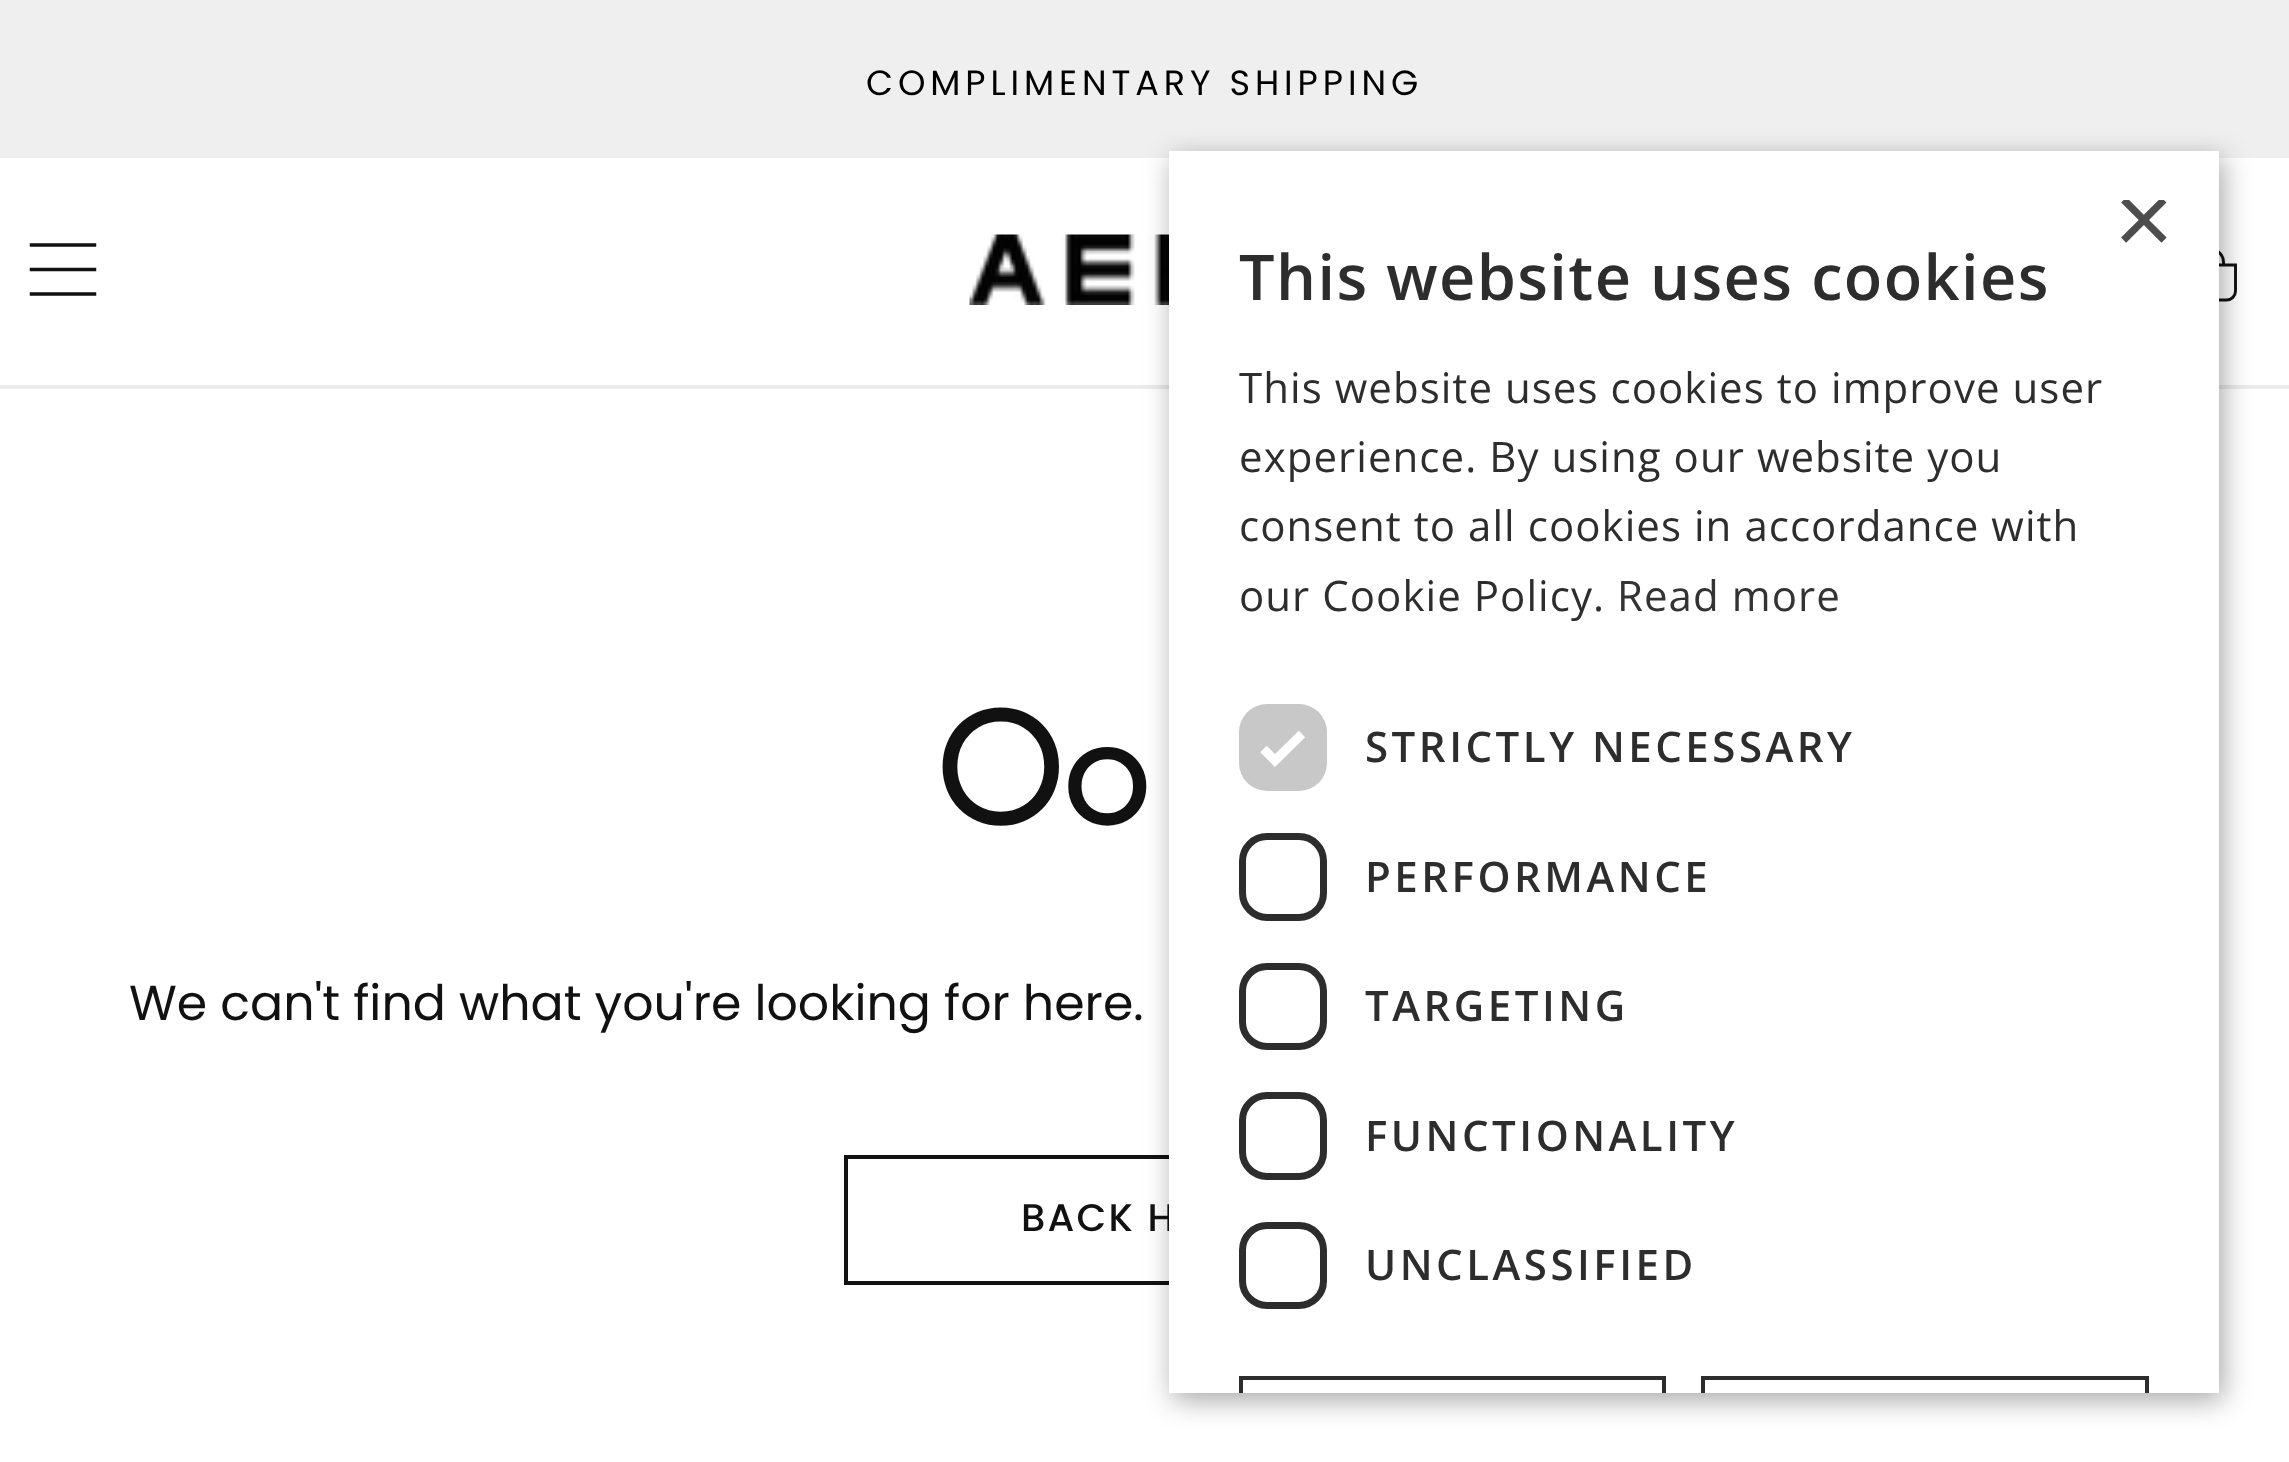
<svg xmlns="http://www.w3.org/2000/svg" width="2289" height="1462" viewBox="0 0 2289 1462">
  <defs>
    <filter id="blur1" x="-50%" y="-200%" width="200%" height="500%"><feGaussianBlur stdDeviation="14"/></filter>
    <clipPath id="clip1"><rect x="2114" y="200" width="53" height="52"/></clipPath>
    <clipPath id="clip2"><rect x="1169" y="151" width="1050" height="1242"/></clipPath>
  </defs>
  <rect width="100%" height="100%" fill="#ffffff"/>
  <rect x="0" y="0" width="2289" height="158" fill="#efefef"/>
  <text x="866" y="95" font-family="Poppins" font-size="35" letter-spacing="4.9" fill="#000000">COMPLIMENTARY SHIPPING</text>
  <rect x="0" y="385" width="2289" height="4" fill="#ebebeb"/>
  <image x="969" y="234" width="200" height="71" href="img1.png"/>
  <path d="M2188.5 265H2235.5V291C2235.5 296 2231.5 300 2226.5 300H2197.5C2192.5 300 2188.5 296 2188.5 291ZM2200.5 265V262C2200.5 255.5 2205.5 250 2212 250C2218.5 250 2223.5 255.5 2223.5 262V265" fill="none" stroke="#111111" stroke-width="2.9"/>
  <rect x="846" y="1157" width="598" height="126" fill="none" stroke="#111111" stroke-width="4"/>
  <rect x="1173" y="158" width="1050" height="1242" fill="#000000" fill-opacity="0.35" filter="url(#blur1)"/>
  <text x="1021" y="1231" font-family="Poppins" font-size="38.5" font-weight="500" letter-spacing="2.25" fill="#111111">BACK H</text>
  <rect x="1169" y="151" width="1050" height="1242" fill="#ffffff"/>
  <g clip-path="url(#clip1)">
    <text x="2114" y="254" font-family="Liberation Sans" font-size="102" fill="#4d4d4d">×</text>
  </g>
  <text x="1239" y="300" font-family="Open Sans" font-size="63" font-weight="600" letter-spacing="1.4" fill="#2d2d2d">This website uses cookies</text>
  <text x="1239" y="403" font-family="Open Sans" font-size="42" letter-spacing="1.05" fill="#2d2d2d">This website uses cookies to improve user</text>
  <text x="1239" y="472" font-family="Open Sans" font-size="42" letter-spacing="1.05" fill="#2d2d2d">experience. By using our website you</text>
  <text x="1239" y="541" font-family="Open Sans" font-size="42" letter-spacing="1.05" fill="#2d2d2d">consent to all cookies in accordance with</text>
  <text x="1239" y="611" font-family="Open Sans" font-size="42" letter-spacing="1.05" fill="#2d2d2d">our Cookie Policy.</text>
  <text x="1617" y="611" font-family="Open Sans" font-size="42" letter-spacing="1.05" fill="#333333">Read more</text>
  <rect x="1239" y="704" width="88" height="87" rx="28" fill="#c8c8c8"/>
  <path d="M1263.5 749L1275 760.5L1302 734" fill="none" stroke="#ffffff" stroke-width="9.2"/>
  <text x="1365" y="762" font-family="Open Sans" font-size="42" font-weight="600" letter-spacing="3.5" fill="#2d2d2d">STRICTLY NECESSARY</text>
  <rect x="1242.5" y="836.5" width="81" height="81" rx="24.5" fill="none" stroke="#2d2d2d" stroke-width="7"/>
  <text x="1365" y="892" font-family="Open Sans" font-size="42" font-weight="600" letter-spacing="3.5" fill="#2d2d2d">PERFORMANCE</text>
  <rect x="1242.5" y="966.5" width="81" height="80" rx="24.5" fill="none" stroke="#2d2d2d" stroke-width="7"/>
  <text x="1365" y="1021" font-family="Open Sans" font-size="42" font-weight="600" letter-spacing="3.5" fill="#2d2d2d">TARGETING</text>
  <rect x="1242.5" y="1095.5" width="81" height="81" rx="24.5" fill="none" stroke="#2d2d2d" stroke-width="7"/>
  <text x="1365" y="1151" font-family="Open Sans" font-size="42" font-weight="600" letter-spacing="3.5" fill="#2d2d2d">FUNCTIONALITY</text>
  <rect x="1242.5" y="1225.5" width="81" height="80" rx="24.5" fill="none" stroke="#2d2d2d" stroke-width="7"/>
  <text x="1365" y="1280" font-family="Open Sans" font-size="42" font-weight="600" letter-spacing="3.5" fill="#2d2d2d">UNCLASSIFIED</text>
  <g clip-path="url(#clip2)">
    <rect x="1241" y="1378" width="423" height="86" fill="none" stroke="#2d2d2d" stroke-width="4"/>
    <rect x="1703" y="1378" width="444" height="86" fill="none" stroke="#2d2d2d" stroke-width="4"/>
  </g>
  <path d="M31.5 269.5H94.5M31.5 245H94.5M31.5 294H94.5" fill="none" stroke="#111111" stroke-width="3.5" stroke-linecap="square"/>
  <text x="936" y="824" font-family="Jost" font-size="164" letter-spacing="-3" fill="#111111">Oo</text>
  <text x="129" y="1020" font-family="Poppins" font-size="49" fill="#111111">We can't find what you're looking for here.</text>
</svg>
